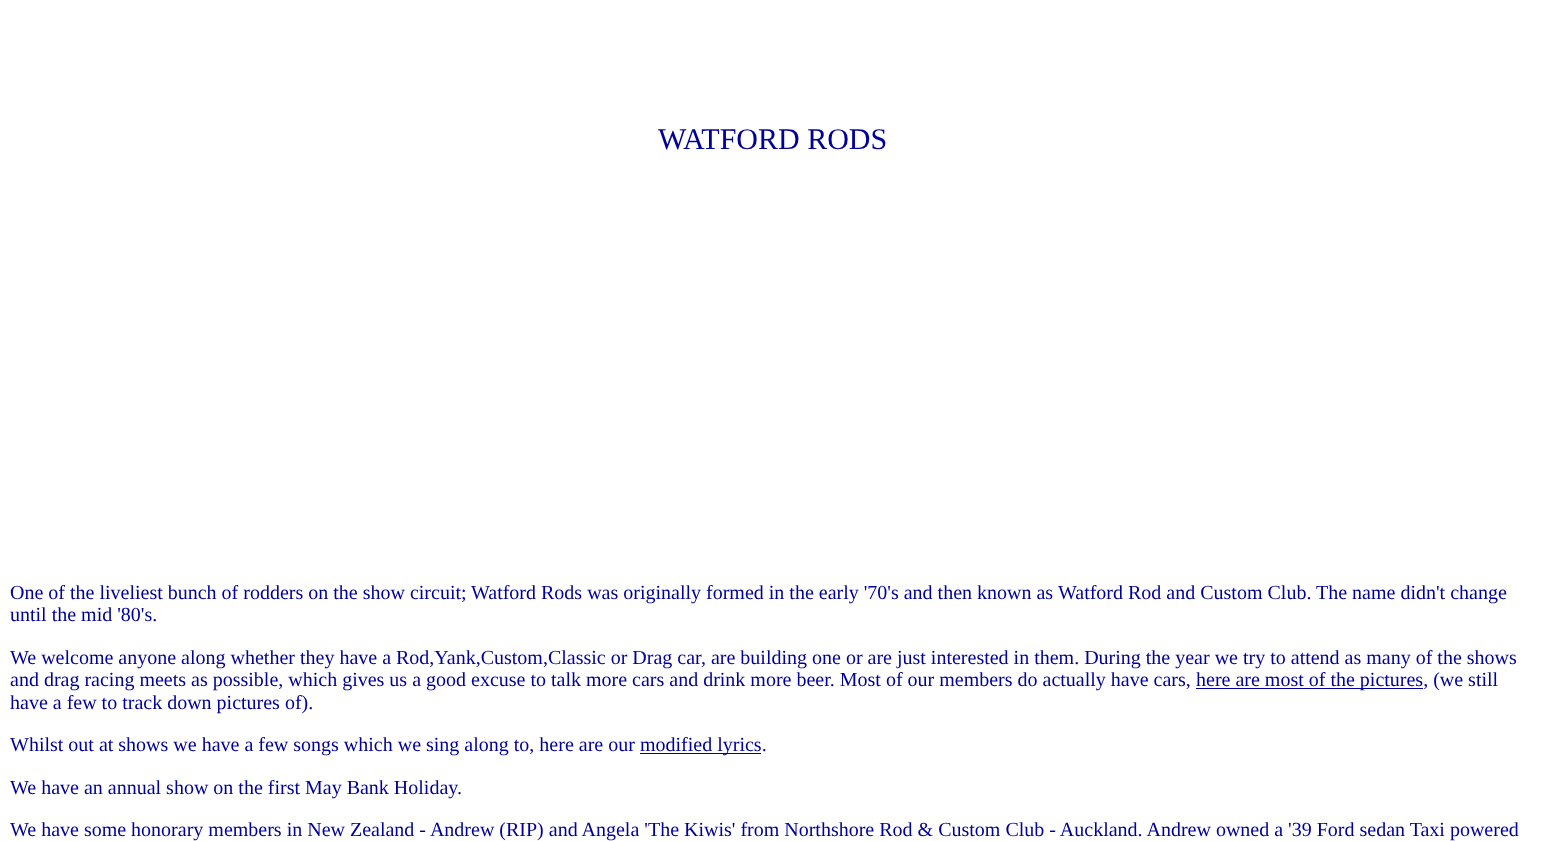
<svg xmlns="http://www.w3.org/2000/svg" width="1544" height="841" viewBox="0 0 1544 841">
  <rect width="100%" height="100%" fill="#ffffff"/>
  <text x="658" y="149" font-family="Liberation Serif" font-size="30" fill="#000099">WATFORD RODS</text>
  <text x="10" y="599" font-family="Liberation Serif" font-size="20" fill="#000099">One of the liveliest bunch of rodders on the show circuit;</text>
  <text x="471" y="599" font-family="Liberation Serif" font-size="20" fill="#000099">Watford Rods was originally formed in the early '70's and then known as</text>
  <text x="1058" y="599" font-family="Liberation Serif" font-size="20" fill="#000099">Watford Rod and Custom Club. The name didn't change</text>
  <text x="10" y="621" font-family="Liberation Serif" font-size="20" fill="#000099">until the mid '80's.</text>
  <text x="10" y="664" font-family="Liberation Serif" font-size="20" fill="#000099">We welcome anyone along whether they have a Rod,Yank,Custom,Classic or Drag car, are building one or are just interested in them. During the year we try to attend as many of the shows</text>
  <text x="10" y="686" font-family="Liberation Serif" font-size="20" fill="#000099">and drag racing meets as possible, which gives us a good excuse to talk more cars and drink more beer. Most of our members do actually have cars,</text>
  <rect x="1196" y="688" width="227" height="1" fill="#000099"/>
  <text x="1196" y="686" font-family="Liberation Serif" font-size="20" fill="#000099">here are most of the pictures, (we still</text>
  <text x="10" y="709" font-family="Liberation Serif" font-size="20" fill="#000099">have a few to track down pictures of).</text>
  <text x="10" y="751" font-family="Liberation Serif" font-size="20" fill="#000099">Whilst out at shows we have a few songs which we sing along to, here are our</text>
  <rect x="640" y="753" width="121" height="1" fill="#000099"/>
  <text x="640" y="751" font-family="Liberation Serif" font-size="20" fill="#000099">modified lyrics.</text>
  <text x="10" y="794" font-family="Liberation Serif" font-size="20" fill="#000099">We have an annual show on the first May Bank Holiday.</text>
  <text x="10" y="836" font-family="Liberation Serif" font-size="20" fill="#000099">We have some honorary members in New Zealand - Andrew (RIP) and Angela 'The Kiwis' from Northshore Rod &amp; Custom Club - Auckland. Andrew owned a '39 Ford sedan Taxi powered</text>
</svg>
